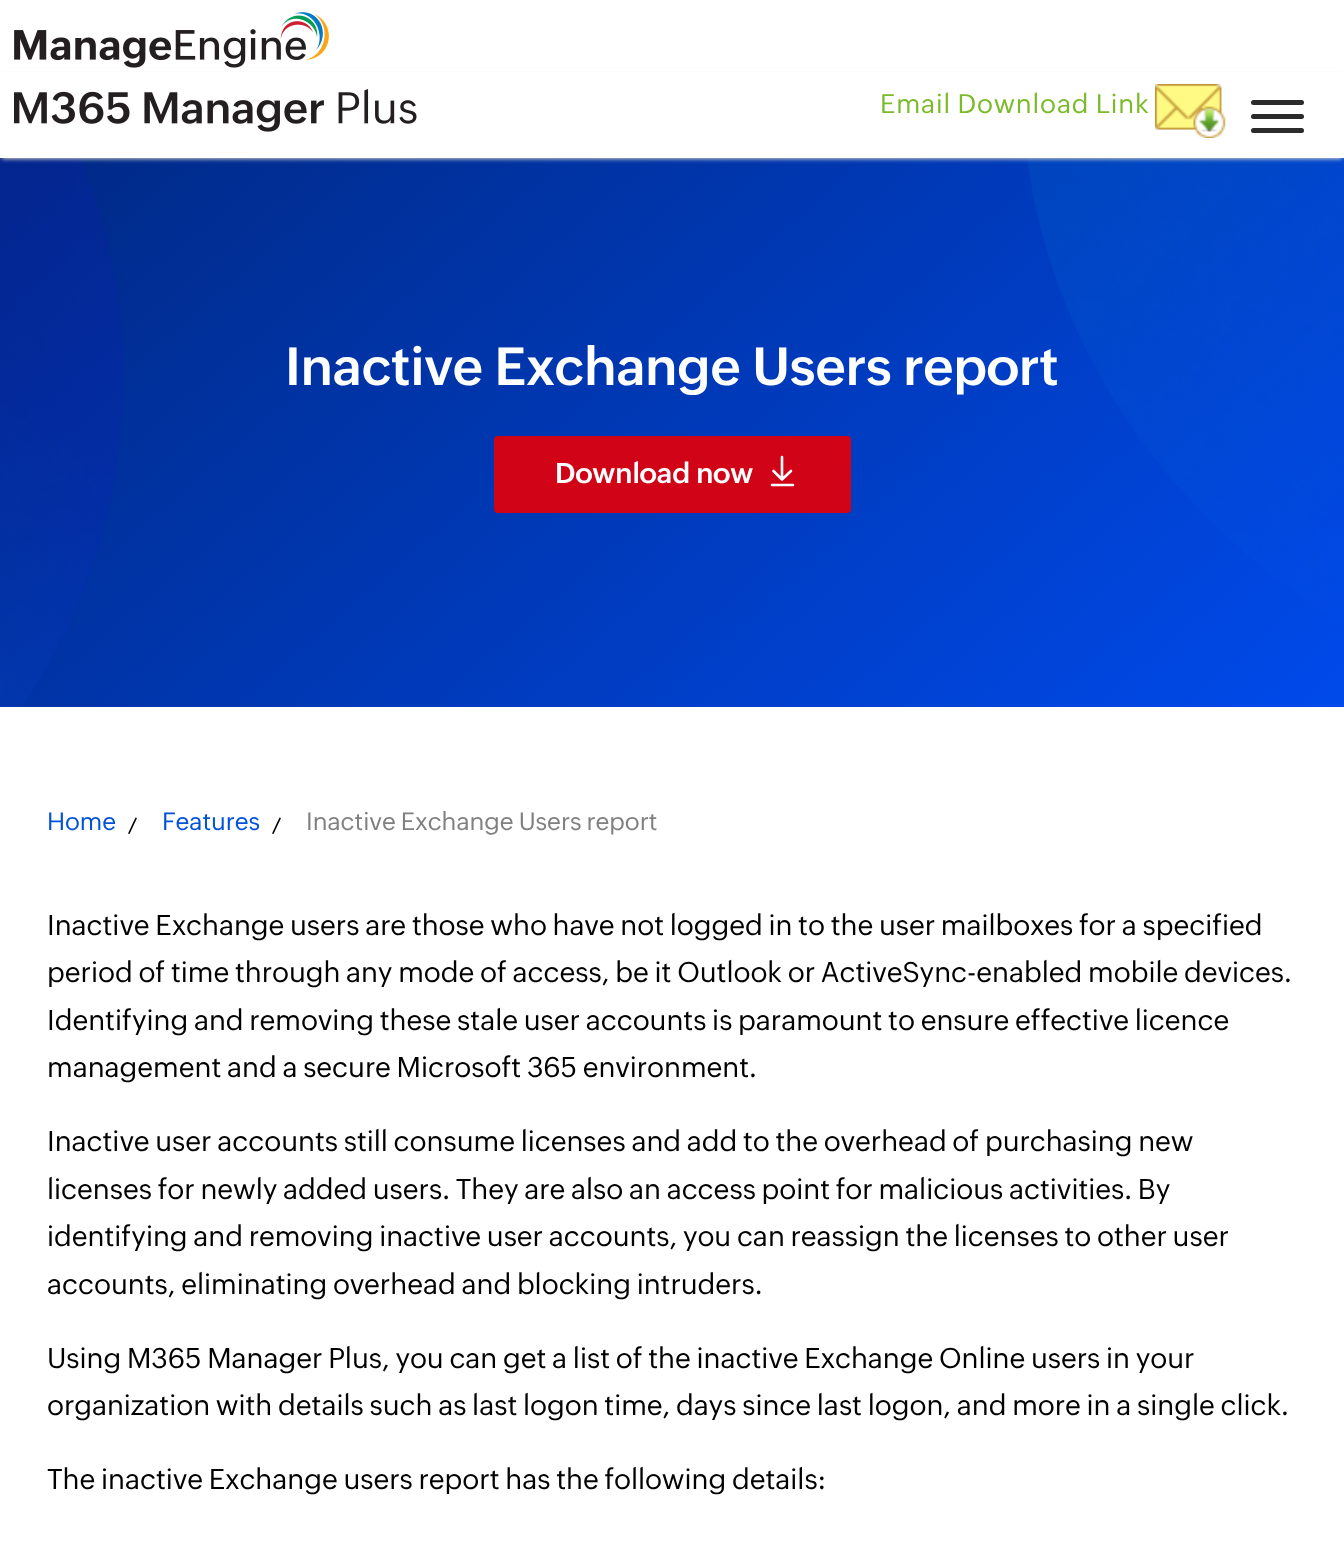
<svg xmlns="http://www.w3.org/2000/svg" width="1344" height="1563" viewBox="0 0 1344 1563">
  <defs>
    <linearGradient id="g1" gradientUnits="userSpaceOnUse" x1="235" y1="-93" x2="1109" y2="912"><stop offset="0" stop-color="#002882"/><stop offset="1" stop-color="#004aeb"/></linearGradient>
    <filter id="blur1" x="-50%" y="-200%" width="200%" height="500%"><feGaussianBlur stdDeviation="2"/></filter>
  </defs>
  <rect width="100%" height="100%" fill="#ffffff"/>
  <image x="14" y="12" width="315" height="56" href="img1.png"/>
  <rect x="0" y="158" width="1344" height="549" fill="url(#g1)"/>
  <image x="0" y="158" width="1344" height="549" href="img4.png"/>
  <rect x="2" y="75" width="1340" height="84" fill="#cccccc" filter="url(#blur1)"/>
  <rect x="0" y="72" width="1344" height="86" fill="#ffffff"/>
  <image x="14" y="89" width="403" height="43" href="img2.png"/>
  <text x="880" y="113" font-family="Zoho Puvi" font-size="26.25" letter-spacing="0.9" fill="#7bbb2a">Email Download Link</text>
  <image x="1155" y="84" width="71" height="54" href="img3.png"/>
  <rect x="1251" y="100" width="53" height="5" rx="2.5" fill="#2b2b2b"/>
  <rect x="1251" y="114" width="53" height="5" rx="2.5" fill="#2b2b2b"/>
  <rect x="1251" y="128" width="53" height="5" rx="2.5" fill="#2b2b2b"/>
  <text x="285" y="385" font-family="Zoho Puvi" font-size="52.5" font-weight="600" fill="#ffffff">Inactive Exchange Users report</text>
  <rect x="495" y="437" width="355" height="75" rx="3" fill="#d00416" stroke="#d00416" stroke-width="2"/>
  <text x="555" y="483" font-family="Zoho Puvi" font-size="28" font-weight="600" fill="#ffffff">Download now</text>
  <path d="M773.5 471L782 479.5M782 479.5L791 471M782 479.5V457M772 485H793" fill="none" stroke="#ffffff" stroke-width="2.6" stroke-linecap="round" stroke-linejoin="round"/>
  <text x="47" y="830" font-family="Zoho Puvi" font-size="24.5" fill="#0052d9">Home</text>
  <path d="M135.5 817.5L137 818L129.5 834L128 833.5Z" fill="#000000"/>
  <text x="162" y="830" font-family="Zoho Puvi" font-size="24.5" fill="#0052d9">Features</text>
  <path d="M279.5 817.5L281 818L273.5 834L272 833.5Z" fill="#000000"/>
  <text x="306" y="830" font-family="Zoho Puvi" font-size="24.5" fill="#808080">Inactive Exchange Users report</text>
  <text x="47" y="935" font-family="Zoho Puvi" font-size="28" fill="#000000">Inactive Exchange users are those who have not logged in to the user mailboxes for a specified</text>
  <text x="47" y="982" font-family="Zoho Puvi" font-size="28" fill="#000000">period of time through any mode of access, be it Outlook or ActiveSync-enabled mobile devices.</text>
  <text x="47" y="1030" font-family="Zoho Puvi" font-size="28" fill="#000000">Identifying and removing these stale user accounts is paramount to ensure effective licence</text>
  <text x="47" y="1077" font-family="Zoho Puvi" font-size="28" fill="#000000">management and a secure Microsoft 365 environment.</text>
  <text x="47" y="1151" font-family="Zoho Puvi" font-size="28" fill="#000000">Inactive user accounts still consume licenses and add to the overhead of purchasing new</text>
  <text x="47" y="1199" font-family="Zoho Puvi" font-size="28" fill="#000000">licenses for newly added users. They are also an access point for malicious activities. By</text>
  <text x="47" y="1246" font-family="Zoho Puvi" font-size="28" fill="#000000">identifying and removing inactive user accounts, you can reassign the licenses to other user</text>
  <text x="47" y="1294" font-family="Zoho Puvi" font-size="28" fill="#000000">accounts, eliminating overhead and blocking intruders.</text>
  <text x="47" y="1368" font-family="Zoho Puvi" font-size="28" fill="#000000">Using M365 Manager Plus, you can get a list of the inactive Exchange Online users in your</text>
  <text x="47" y="1415" font-family="Zoho Puvi" font-size="28" fill="#000000">organization with details such as last logon time, days since last logon, and more in a single click.</text>
  <text x="47" y="1489" font-family="Zoho Puvi" font-size="28" fill="#000000">The inactive Exchange users report has the following details:</text>
</svg>
